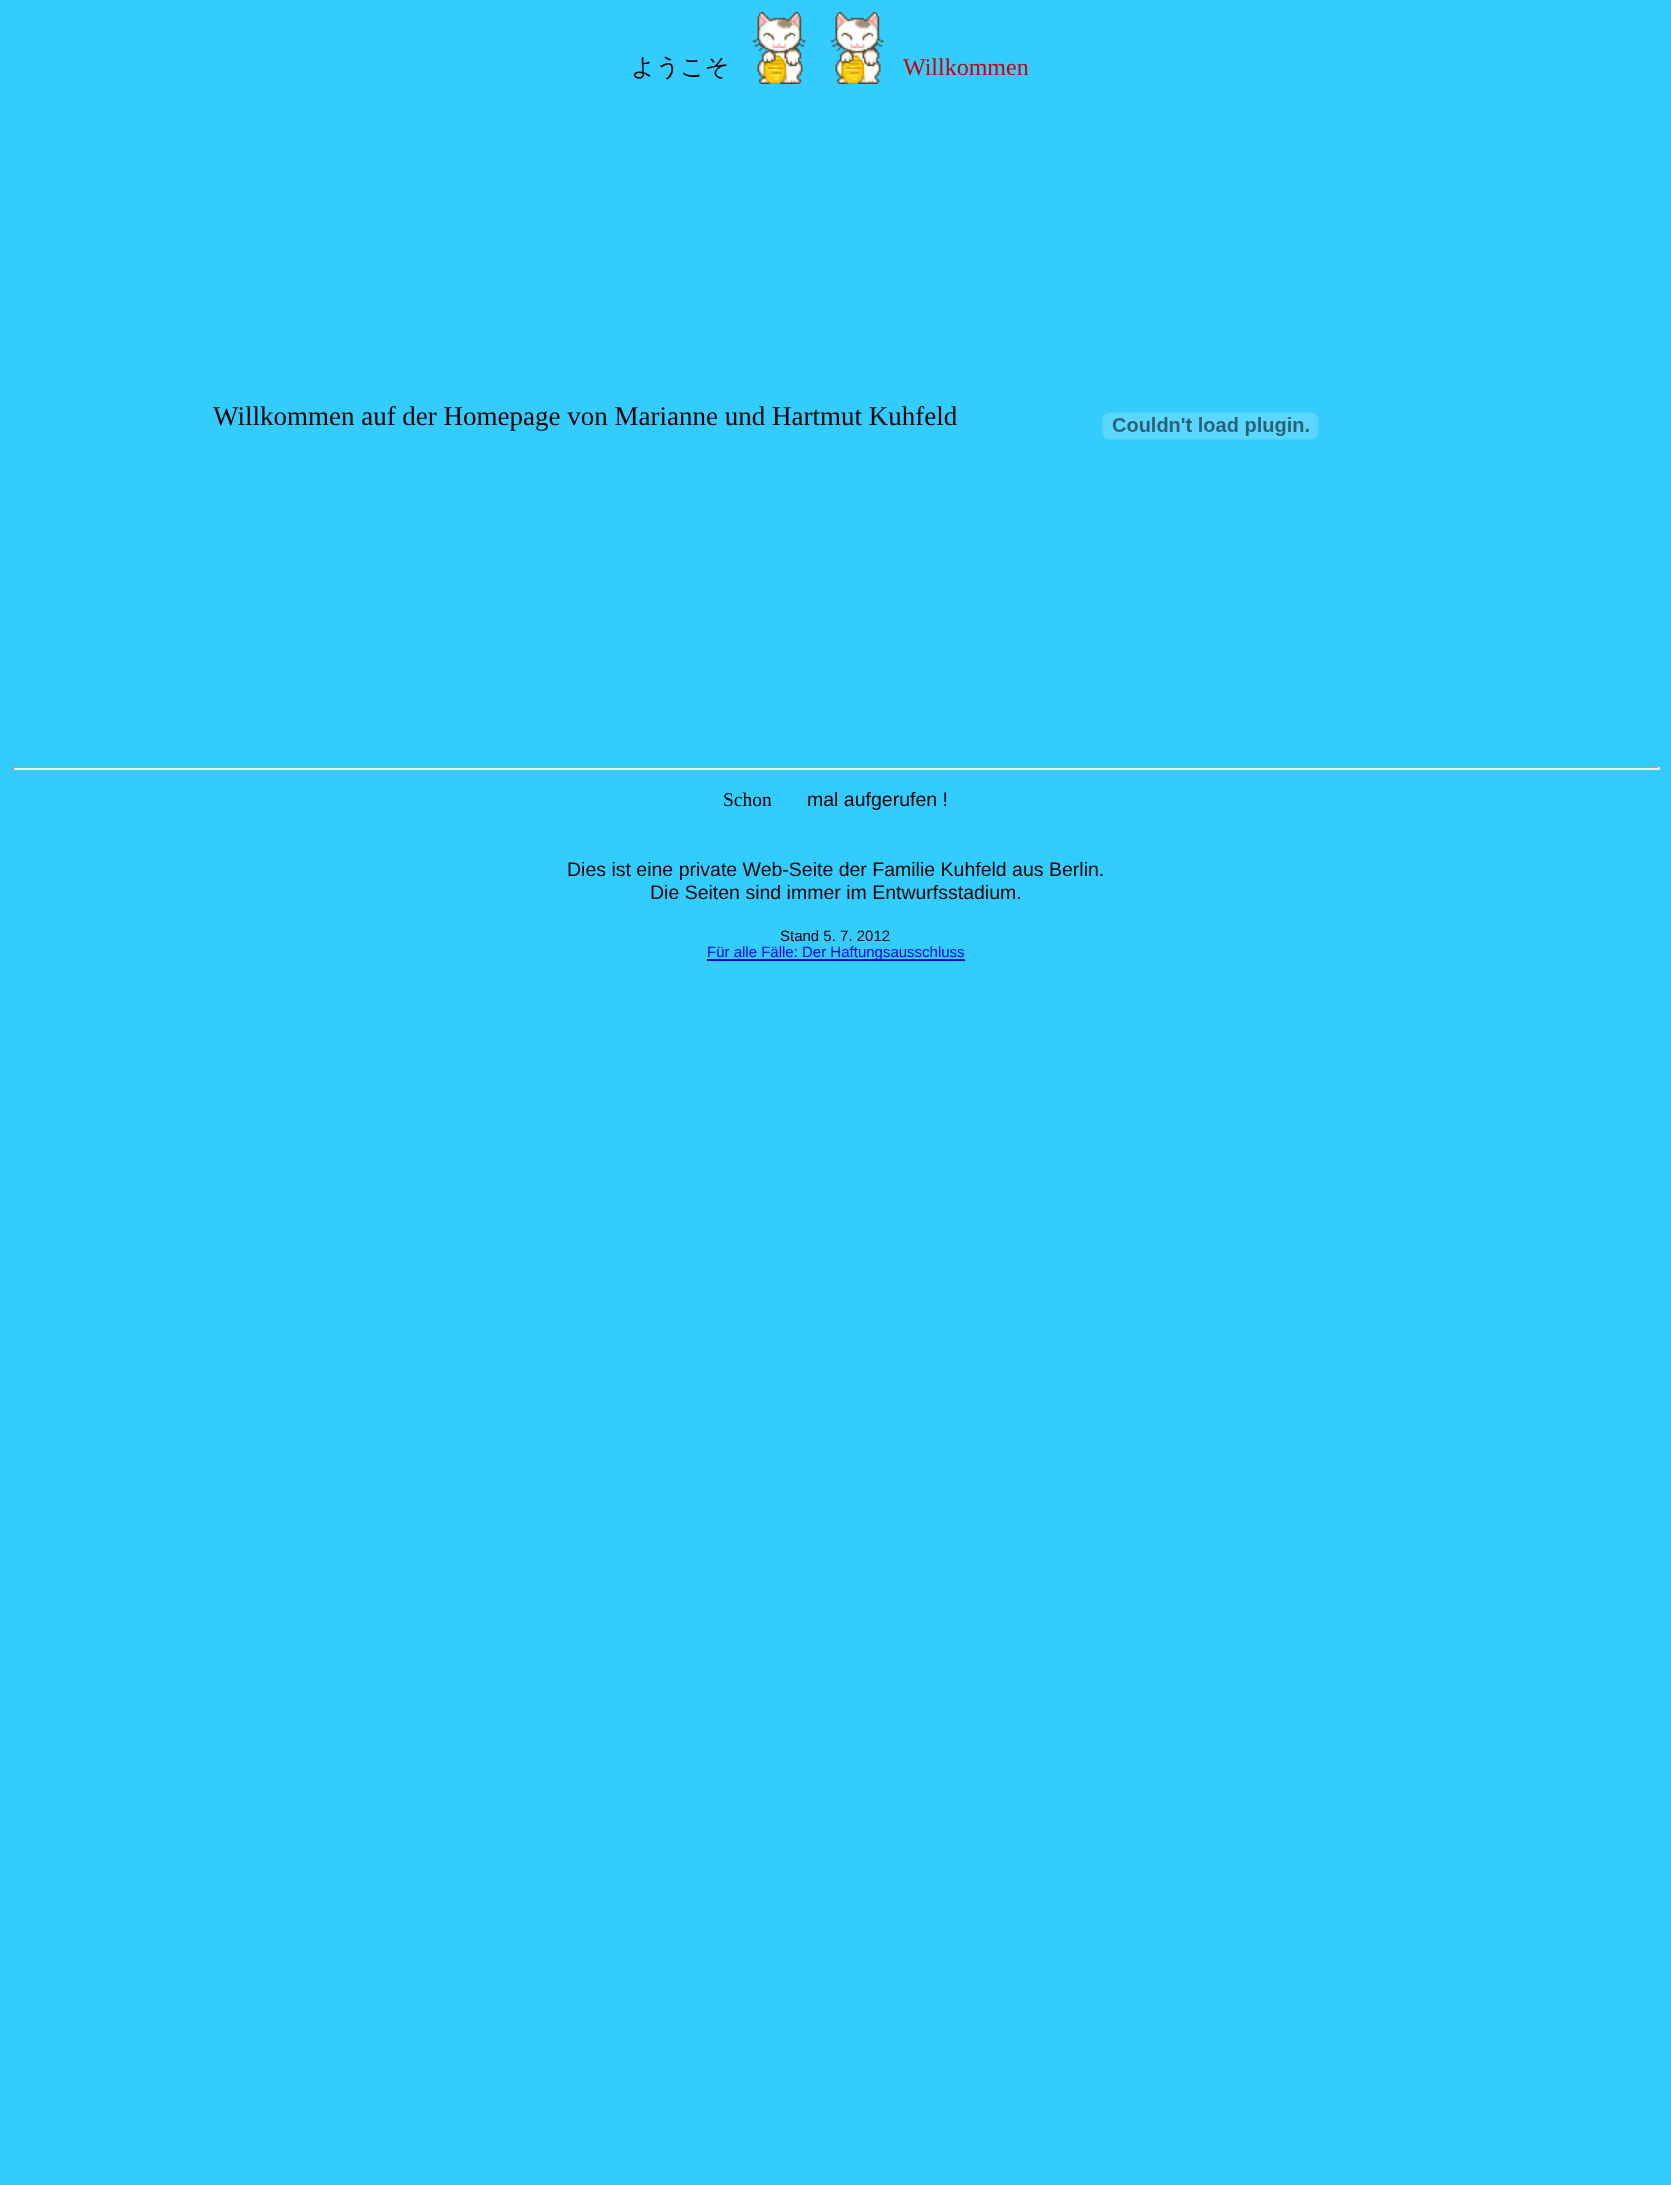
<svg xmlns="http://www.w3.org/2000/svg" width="1671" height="2185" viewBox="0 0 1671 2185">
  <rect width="100%" height="100%" fill="#33ccff"/>
  <text x="631" y="75" font-family="WenQuanYi Zen Hei" font-size="24" font-weight="500" fill="#000000">ようこそ</text>
  <image x="752" y="12" width="54" height="72" href="img1.png"/>
  <image x="830" y="12" width="54" height="72" href="img2.png"/>
  <text x="903" y="75" font-family="Liberation Serif" font-size="24" fill="#cc0000">Willkommen</text>
  <text x="213" y="425" font-family="Liberation Serif" font-size="27" fill="#000000">Willkommen auf der Homepage von Marianne und Hartmut Kuhfeld</text>
  <image x="1102" y="412" width="217" height="28" href="img3.png"/>
  <rect x="12" y="767" width="1647" height="1" fill="#9f9f9f"/>
  <rect x="1658" y="767" width="2" height="3" fill="#eeeeee"/>
  <rect x="12" y="768" width="1647" height="2" fill="#eeeeee"/>
  <rect x="12" y="767" width="2" height="3" fill="#9f9f9f"/>
  <text x="723" y="806" font-family="Liberation Serif" font-size="19.5" fill="#000000">Schon</text>
  <text x="807" y="806" font-family="Liberation Sans" font-size="19.5" fill="#000000">mal aufgerufen !</text>
  <text x="567" y="876" font-family="Liberation Sans" font-size="19.5" fill="#000000">Dies ist eine private Web-Seite der Familie Kuhfeld aus Berlin.</text>
  <text x="650" y="899" font-family="Liberation Sans" font-size="19.5" fill="#000000">Die Seiten sind immer im Entwurfsstadium.</text>
  <text x="780" y="941" font-family="Liberation Sans" font-size="15" fill="#000000">Stand 5. 7. 2012</text>
  <rect x="707" y="959" width="258" height="2" fill="#0000ee"/>
  <text x="707" y="957" font-family="Liberation Sans" font-size="15" fill="#0000ee">Für alle Fälle: Der Haftungsausschluss</text>
</svg>
